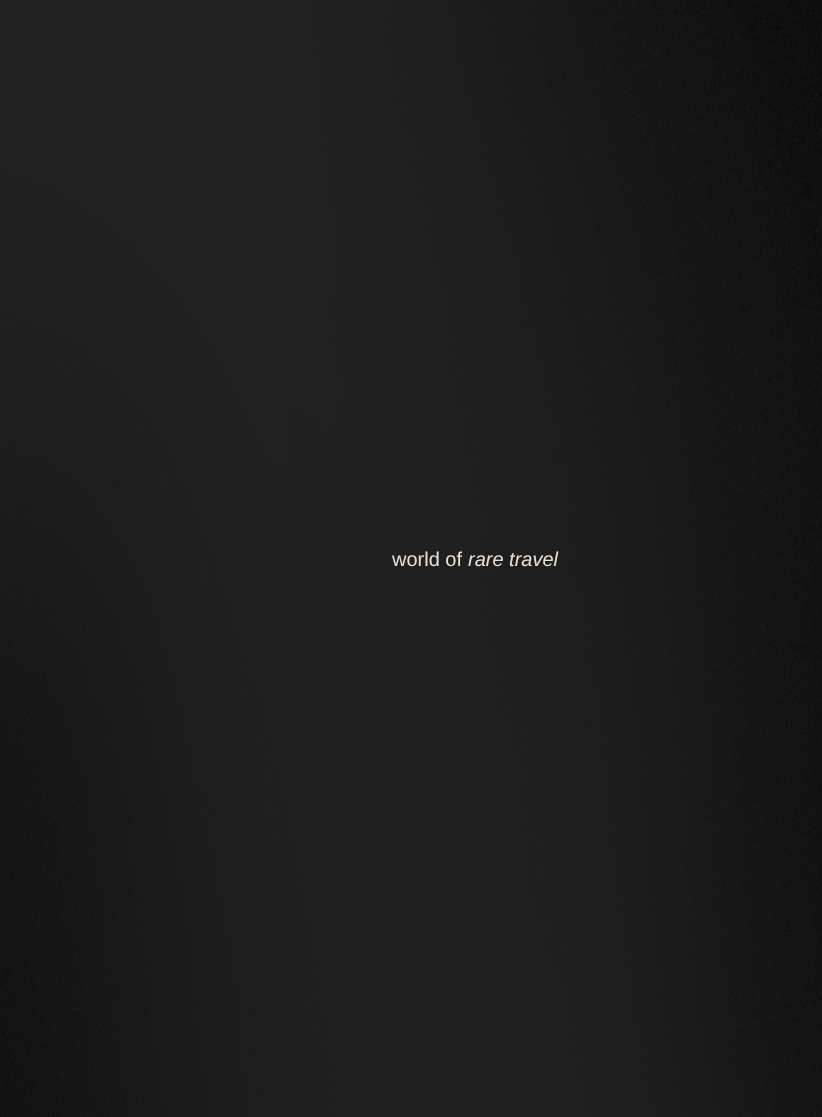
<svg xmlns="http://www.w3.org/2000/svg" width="822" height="1117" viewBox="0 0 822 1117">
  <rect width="100%" height="100%" fill="#ffffff"/>
  <image x="0" y="0" width="822" height="1117" href="img1.png"/>
  <text x="392" y="566" font-family="Liberation Sans" font-size="20" fill="#e9e0d9">world of</text>
  <text x="468" y="566" font-family="Liberation Sans" font-size="20" font-style="italic" fill="#e9e0d9">rare travel</text>
</svg>
